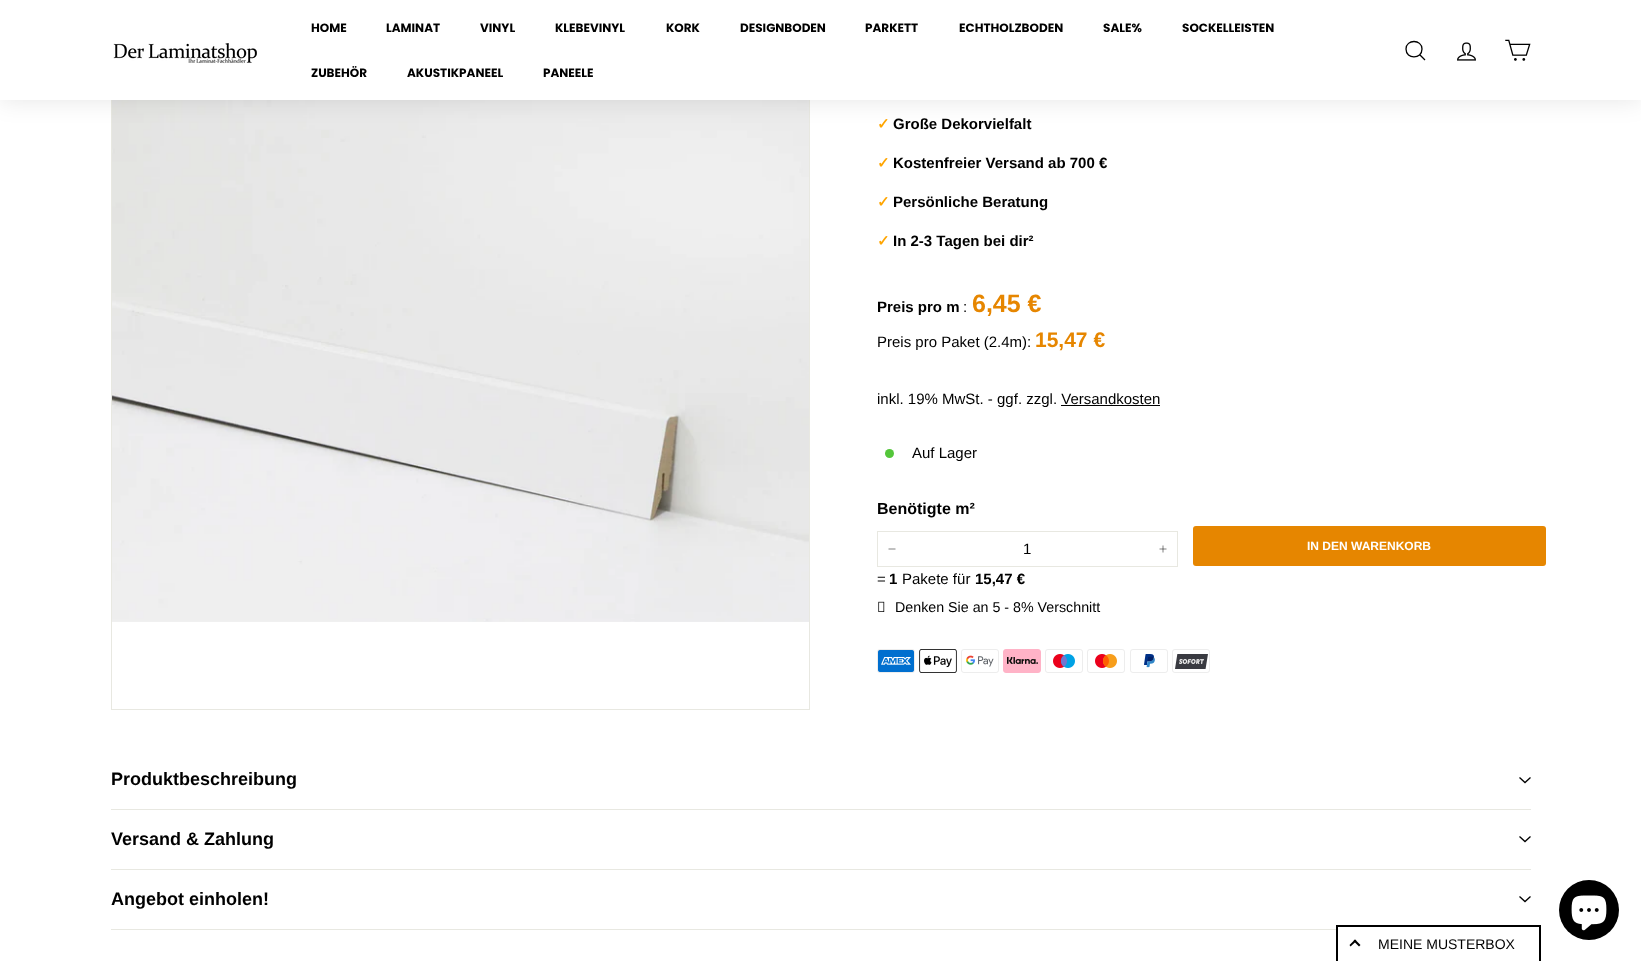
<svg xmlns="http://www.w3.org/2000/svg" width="1641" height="961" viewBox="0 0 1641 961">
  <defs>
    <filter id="blur1" x="-50%" y="-200%" width="200%" height="500%"><feGaussianBlur stdDeviation="12.5"/></filter>
  </defs>
  <rect width="100%" height="100%" fill="#ffffff"/>
  <rect x="111.5" y="11.5" width="698" height="698" fill="none" stroke="#e8e8e1"/>
  <image x="112" y="100" width="697" height="522" href="img4.png"/>
  <rect x="0" y="0" width="1641" height="100" fill="#000000" fill-opacity="0.1" filter="url(#blur1)"/>
  <rect x="0" y="0" width="1641" height="100" fill="#ffffff"/>
  <image x="113" y="43" width="144" height="21" href="img1.png"/>
  <text x="311" y="32" font-family="Poppins" font-size="12" font-weight="bold" fill="#000000">HOME</text>
  <text x="386" y="32" font-family="Poppins" font-size="12" font-weight="bold" fill="#000000">LAMINAT</text>
  <text x="480" y="32" font-family="Poppins" font-size="12" font-weight="bold" fill="#000000">VINYL</text>
  <text x="555" y="32" font-family="Poppins" font-size="12" font-weight="bold" fill="#000000">KLEBEVINYL</text>
  <text x="666" y="32" font-family="Poppins" font-size="12" font-weight="bold" fill="#000000">KORK</text>
  <text x="740" y="32" font-family="Poppins" font-size="12" font-weight="bold" fill="#000000">DESIGNBODEN</text>
  <text x="865" y="32" font-family="Poppins" font-size="12" font-weight="bold" fill="#000000">PARKETT</text>
  <text x="959" y="32" font-family="Poppins" font-size="12" font-weight="bold" fill="#000000">ECHTHOLZBODEN</text>
  <text x="1103" y="32" font-family="Poppins" font-size="12" font-weight="bold" fill="#000000">SALE%</text>
  <text x="1182" y="32" font-family="Poppins" font-size="12" font-weight="bold" fill="#000000">SOCKELLEISTEN</text>
  <text x="311" y="77" font-family="Poppins" font-size="12" font-weight="bold" fill="#000000">ZUBEHÖR</text>
  <text x="407" y="77" font-family="Poppins" font-size="12" font-weight="bold" fill="#000000">AKUSTIKPANEEL</text>
  <text x="543" y="77" font-family="Poppins" font-size="12" font-weight="bold" fill="#000000">PANEELE</text>
  <path d="M1422 49C1422 59.5 1406 59.5 1406 49C1406 39 1422 39 1422 49ZM1425 60L1419.5 54.5" fill="none" stroke="#000000" stroke-width="1.3"/>
  <image x="1457" y="42" width="19" height="19" href="img2.png"/>
  <image x="1505" y="39" width="26" height="22" href="img3.png"/>
  <text x="877" y="129" font-family="DejaVu Sans" font-size="15" font-weight="bold" fill="#ffa500">✓</text>
  <text x="893" y="129" font-family="Liberation Sans" font-size="15" font-weight="bold" fill="#000000">Große Dekorvielfalt</text>
  <text x="877" y="168" font-family="DejaVu Sans" font-size="15" font-weight="bold" fill="#ffa500">✓</text>
  <text x="893" y="168" font-family="Liberation Sans" font-size="15" font-weight="bold" fill="#000000">Kostenfreier Versand ab 700 €</text>
  <text x="877" y="207" font-family="DejaVu Sans" font-size="15" font-weight="bold" fill="#ffa500">✓</text>
  <text x="893" y="207" font-family="Liberation Sans" font-size="15" font-weight="bold" fill="#000000">Persönliche Beratung</text>
  <text x="877" y="246" font-family="DejaVu Sans" font-size="15" font-weight="bold" fill="#ffa500">✓</text>
  <text x="893" y="246" font-family="Liberation Sans" font-size="15" font-weight="bold" fill="#000000">In 2-3 Tagen bei dir²</text>
  <text x="877" y="312" font-family="Liberation Sans" font-size="15" font-weight="bold" fill="#000000">Preis pro m</text>
  <text x="963" y="312" font-family="Liberation Sans" font-size="15" fill="#000000">:</text>
  <text x="972" y="312" font-family="Liberation Sans" font-size="25" font-weight="bold" fill="#e68600">6,45 €</text>
  <text x="877" y="347" font-family="Liberation Sans" font-size="15" fill="#000000">Preis pro Paket (2.4m):</text>
  <text x="1035" y="347" font-family="Liberation Sans" font-size="21" font-weight="bold" fill="#e68600">15,47 €</text>
  <text x="877" y="404" font-family="Liberation Sans" font-size="15" fill="#000000">inkl. 19% MwSt. - ggf. zzgl. Versandkosten</text>
  <rect x="1061" y="405" width="99" height="1" fill="#000000"/>
  <circle cx="889.5" cy="453.5" r="4.5" fill="#54c63a"/>
  <text x="912" y="458" font-family="Liberation Sans" font-size="15" fill="#000000">Auf Lager</text>
  <text x="877" y="514" font-family="Liberation Sans" font-size="16" font-weight="bold" fill="#000000">Benötigte m²</text>
  <rect x="877.5" y="531.5" width="300" height="35" fill="none" stroke="#e8e8e1"/>
  <path d="M895.5 549H888.5" fill="none" stroke="#000000" stroke-width="0.5"/>
  <text x="1023" y="554" font-family="Liberation Sans" font-size="15" fill="#000000">1</text>
  <path d="M1163 545.5V552.5M1166.5 549H1159.5" fill="none" stroke="#000000" stroke-width="0.5"/>
  <rect x="1193" y="526" width="353" height="40" rx="3" fill="#e68600"/>
  <text x="1307" y="550" font-family="Liberation Sans" font-size="12" font-weight="bold" fill="#ffffff">IN DEN WARENKORB</text>
  <text x="877" y="584" font-family="Liberation Sans" font-size="15" fill="#000000">=</text>
  <text x="889" y="584" font-family="Liberation Sans" font-size="15" font-weight="bold" fill="#000000">1</text>
  <text x="902" y="584" font-family="Liberation Sans" font-size="15" fill="#000000">Pakete für</text>
  <text x="975" y="584" font-family="Liberation Sans" font-size="15" font-weight="bold" fill="#000000">15,47 €</text>
  <image x="878" y="601" width="7" height="11" href="img5.png"/>
  <text x="895" y="612" font-family="Liberation Sans" font-size="14.25" fill="#000000">Denken Sie an 5 - 8% Verschnitt</text>
  <image x="877" y="649" width="38" height="24" href="img6.png"/>
  <image x="919" y="649" width="38" height="24" href="img7.png"/>
  <image x="961" y="649" width="38" height="24" href="img8.png"/>
  <image x="1003" y="649" width="38" height="24" href="img9.png"/>
  <image x="1045" y="649" width="38" height="24" href="img10.png"/>
  <image x="1087" y="649" width="38" height="24" href="img11.png"/>
  <image x="1130" y="649" width="38" height="24" href="img12.png"/>
  <image x="1172" y="649" width="38" height="24" href="img13.png"/>
  <rect x="111" y="809" width="1420" height="1" fill="#e8e8e1"/>
  <text x="111" y="785" font-family="Liberation Sans" font-size="18" font-weight="bold" fill="#000000">Produktbeschreibung</text>
  <path d="M1519.5 777.5L1525 782.5L1530.5 777.5" fill="none" stroke="#000000" stroke-width="1.3"/>
  <rect x="111" y="869" width="1420" height="1" fill="#e8e8e1"/>
  <text x="111" y="845" font-family="Liberation Sans" font-size="18" font-weight="bold" fill="#000000">Versand &amp; Zahlung</text>
  <path d="M1519.5 836.5L1525 841.5L1530.5 836.5" fill="none" stroke="#000000" stroke-width="1.3"/>
  <rect x="111" y="929" width="1225" height="1" fill="#e8e8e1"/>
  <text x="111" y="905" font-family="Liberation Sans" font-size="18" font-weight="bold" fill="#000000">Angebot einholen!</text>
  <path d="M1519.5 896.5L1525 901.5L1530.5 896.5" fill="none" stroke="#000000" stroke-width="1.3"/>
  <circle cx="1589" cy="910" r="30" fill="#000000"/>
  <image x="1571" y="895" width="36" height="36" href="img14.png"/>
  <rect x="1336" y="925" width="205" height="2" fill="#000000"/>
  <rect x="1539" y="925" width="2" height="36" fill="#000000"/>
  <rect x="1336" y="925" width="2" height="36" fill="#000000"/>
  <path d="M1355 939.5L1360.5 945L1359 946.5L1353.5 941Z" fill="#000000"/>
  <path d="M1355 939.5L1356.5 941L1350.5 946.5L1349.5 945Z" fill="#000000"/>
  <text x="1378" y="949" font-family="Liberation Sans" font-size="14" fill="#000000">MEINE MUSTERBOX</text>
</svg>
